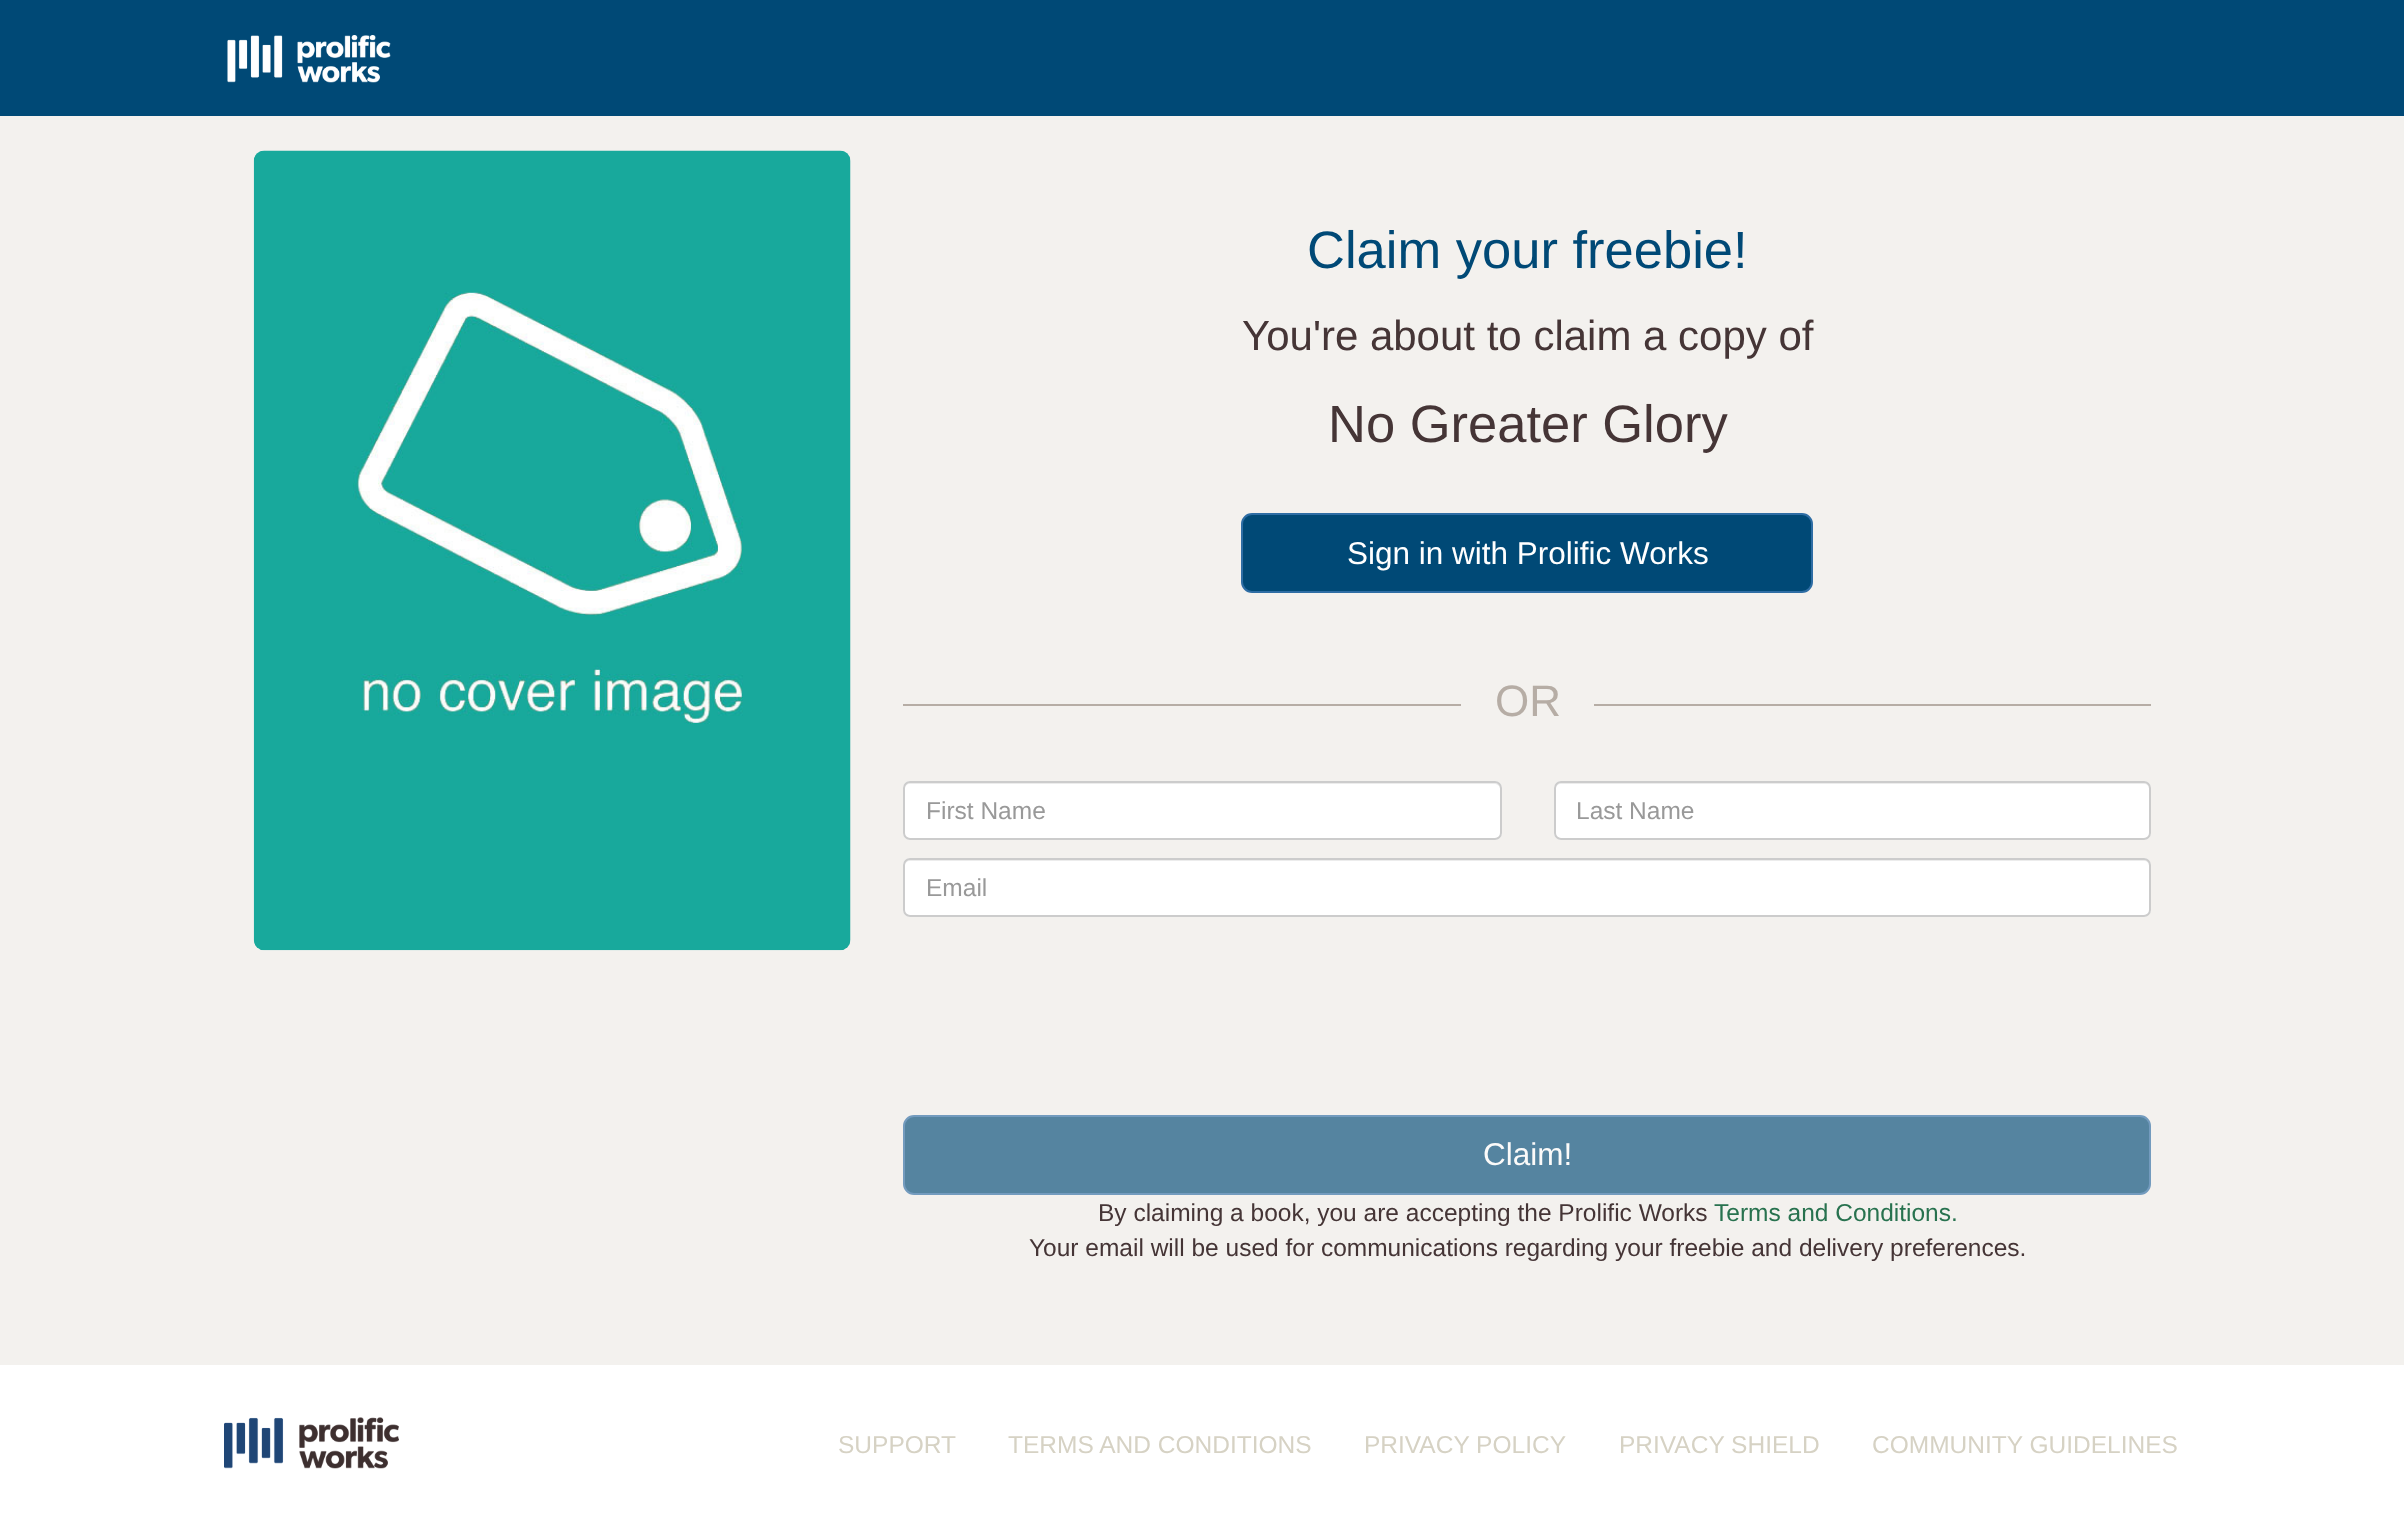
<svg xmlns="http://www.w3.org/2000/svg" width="2404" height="1521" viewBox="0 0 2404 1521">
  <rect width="100%" height="100%" fill="#f3f1ee"/>
  <rect x="0" y="0" width="2404" height="116" fill="#004976"/>
  <image x="227" y="35" width="164" height="48" href="img1.png"/>
  <image x="253" y="150" width="598" height="801" href="img2.png"/>
  <text x="1307" y="268" font-family="Liberation Sans" font-size="52.5" fill="#004976">Claim your freebie!</text>
  <text x="1242" y="350" font-family="Liberation Sans" font-size="42" fill="#453536">You're about to claim a copy of</text>
  <text x="1328" y="442" font-family="Liberation Sans" font-size="52.5" fill="#453536">No Greater Glory</text>
  <rect x="1242" y="514" width="570" height="78" rx="10" fill="#004976" stroke="#2e6da4" stroke-width="2"/>
  <text x="1347" y="564" font-family="Liberation Sans" font-size="31.5" fill="#ffffff">Sign in with Prolific Works</text>
  <rect x="903" y="704" width="558" height="2" fill="#b6ada5"/>
  <text x="1495" y="716" font-family="Liberation Sans" font-size="44" fill="#b6ada5">OR</text>
  <rect x="1594" y="704" width="557" height="2" fill="#b6ada5"/>
  <rect x="903" y="781" width="599" height="59" rx="7" fill="#ffffff"/>
  <path d="M910 784H1494C1497 784 1500 786 1500 789V787C1500 784 1498 782 1495 782H910C907 782 905 784 905 787V789C905 786 907 784 910 784Z" fill="#ececec"/>
  <rect x="904" y="782" width="597" height="57" rx="6" fill="none" stroke="#cccccc" stroke-width="2"/>
  <text x="926" y="819" font-family="Liberation Sans" font-size="24.5" fill="#999999">First Name</text>
  <rect x="1554" y="781" width="597" height="59" rx="7" fill="#ffffff"/>
  <path d="M1561 784H2144C2147 784 2149 786 2149 789V787C2149 784 2147 782 2144 782H1561C1558 782 1556 784 1556 787V789C1556 786 1558 784 1561 784Z" fill="#ececec"/>
  <rect x="1555" y="782" width="595" height="57" rx="6" fill="none" stroke="#cccccc" stroke-width="2"/>
  <text x="1576" y="819" font-family="Liberation Sans" font-size="24.5" fill="#999999">Last Name</text>
  <rect x="903" y="858" width="1248" height="59" rx="7" fill="#ffffff"/>
  <path d="M910 861H2144C2147 861 2149 863 2149 866V864C2149 861 2147 859 2144 859H910C907 859 905 861 905 864V866C905 863 907 861 910 861Z" fill="#ececec"/>
  <rect x="904" y="859" width="1246" height="57" rx="6" fill="none" stroke="#cccccc" stroke-width="2"/>
  <text x="926" y="896" font-family="Liberation Sans" font-size="24.5" fill="#999999">Email</text>
  <rect x="904" y="1116" width="1246" height="78" rx="10" fill="#5584a0" stroke="#739bbe" stroke-width="2"/>
  <text x="1483" y="1165" font-family="Liberation Sans" font-size="31.5" fill="#fbfaf9">Claim!</text>
  <text x="1098" y="1221" font-family="Liberation Sans" font-size="24.5" fill="#453536">By claiming a book, you are accepting the Prolific Works</text>
  <text x="1714" y="1221" font-family="Liberation Sans" font-size="24.5" fill="#28724f">Terms and Conditions.</text>
  <text x="1029" y="1256" font-family="Liberation Sans" font-size="24.5" fill="#453536">Your email will be used for communications regarding your freebie and delivery preferences.</text>
  <rect x="0" y="1365" width="2404" height="156" fill="#ffffff"/>
  <image x="224" y="1417" width="175" height="52" href="img3.png"/>
  <text x="838" y="1453" font-family="Liberation Sans" font-size="24.5" fill="#d6d2c4">SUPPORT</text>
  <text x="1008" y="1453" font-family="Liberation Sans" font-size="24.5" fill="#d6d2c4">TERMS AND CONDITIONS</text>
  <text x="1364" y="1453" font-family="Liberation Sans" font-size="24.5" fill="#d6d2c4">PRIVACY POLICY</text>
  <text x="1619" y="1453" font-family="Liberation Sans" font-size="24.5" fill="#d6d2c4">PRIVACY SHIELD</text>
  <text x="1872" y="1453" font-family="Liberation Sans" font-size="24.5" fill="#d6d2c4">COMMUNITY GUIDELINES</text>
</svg>
